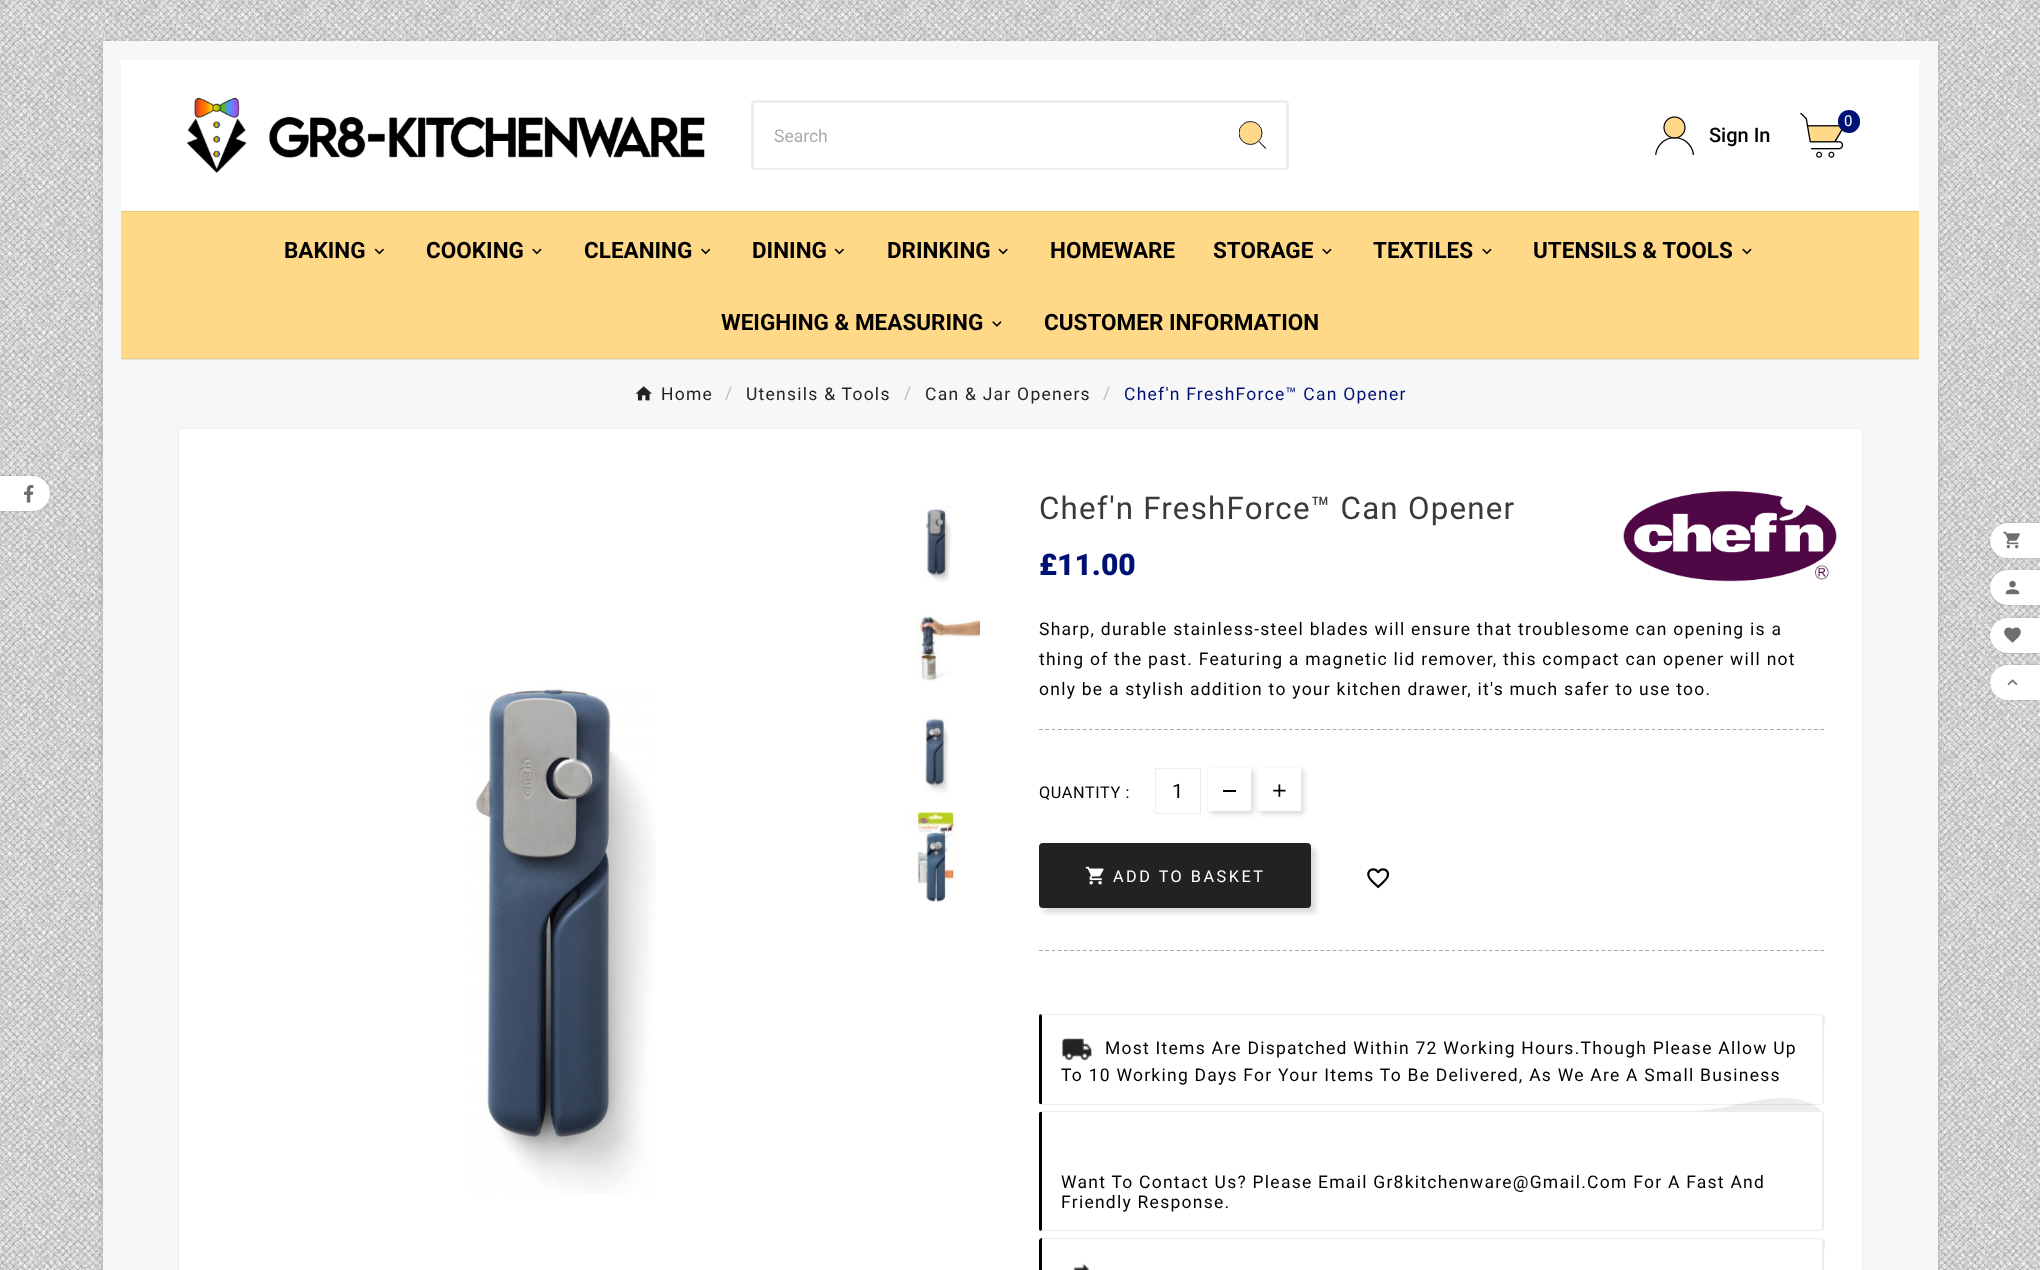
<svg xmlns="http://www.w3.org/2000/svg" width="2040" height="1270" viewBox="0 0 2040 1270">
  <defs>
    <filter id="blur1" x="-50%" y="-200%" width="200%" height="500%"><feGaussianBlur stdDeviation="2"/></filter>
    <clipPath id="clip1"><rect x="1239" y="121" width="27" height="28"/></clipPath>
    <clipPath id="clip2"><path d="M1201 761H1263V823H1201ZM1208 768H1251V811H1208Z" clip-rule="evenodd"/></clipPath>
    <filter id="blur2" x="-50%" y="-200%" width="200%" height="500%"><feGaussianBlur stdDeviation="2.5"/></filter>
    <clipPath id="clip3"><path d="M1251 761H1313V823H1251ZM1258 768H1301V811H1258Z" clip-rule="evenodd"/></clipPath>
    <filter id="blur3" x="-50%" y="-200%" width="200%" height="500%"><feGaussianBlur stdDeviation="1"/></filter>
  </defs>
  <rect width="100%" height="100%" fill="#f2f2f2"/>
  <image x="0" y="0" width="2040" height="1270" href="img1.png"/>
  <rect x="101" y="41" width="1838" height="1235" fill="#808080" fill-opacity="0.27" filter="url(#blur1)"/>
  <rect x="103" y="41" width="1835" height="1229" fill="#f7f7f7"/>
  <rect x="121" y="60" width="1798" height="151" fill="#ffffff"/>
  <rect x="121" y="359" width="1798" height="1" fill="#e5e5e5"/>
  <image x="187" y="98" width="518" height="75" href="img2.png"/>
  <rect x="752.5" y="101.5" width="535" height="67" rx="2.5" fill="none" stroke="#ededed" stroke-width="3"/>
  <path d="M755 103H1219V168H755C754.5 168 754 167.5 754 167V104C754 103.5 754.5 103 755 103Z" fill="#ffffff"/>
  <text x="774" y="142" font-family="Roboto" font-size="17.5" fill="#aaaaaa">Search</text>
  <path d="M1219 103H1285C1285.5 103 1286 103.5 1286 104V167C1286 167.5 1285.5 168 1285 168H1219Z" fill="#ffffff"/>
  <path d="M1265.5 149L1258.5 141.5L1259 141L1266 148Z" fill="#000000"/>
  <circle cx="1250.5" cy="133" r="11" fill="#ffd888"/>
  <g clip-path="url(#clip1)">
    <circle cx="1250.5" cy="133" r="11.5" fill="none" stroke="#000000" stroke-width="0.9"/>
  </g>
  <image x="1800" y="113" width="44" height="45" href="img3.png"/>
  <rect x="1838" y="110" width="22" height="23" rx="11" fill="#001174"/>
  <text x="1844" y="126" font-family="Roboto" font-size="15" letter-spacing="1.25" fill="#ffffff">0</text>
  <image x="1655" y="116" width="39" height="39" href="img4.png"/>
  <text x="1709" y="142" font-family="Roboto" font-size="20" font-weight="500" fill="#000000">Sign In</text>
  <rect x="121" y="212" width="1798" height="146" fill="#ffd888"/>
  <rect x="121" y="211" width="1798" height="1" fill="#edc97e"/>
  <rect x="121" y="358" width="1798" height="1" fill="#edc97e"/>
  <text x="284" y="258" font-family="Roboto" font-size="22.5" font-weight="bold" fill="#000000">BAKING</text>
  <image x="374" y="248" width="10" height="7" href="img5.png"/>
  <text x="426" y="258" font-family="Roboto" font-size="22.5" font-weight="bold" fill="#000000">COOKING</text>
  <image x="532" y="248" width="10" height="7" href="img6.png"/>
  <text x="584" y="258" font-family="Roboto" font-size="22.5" font-weight="bold" fill="#000000">CLEANING</text>
  <image x="701" y="248" width="10" height="7" href="img7.png"/>
  <text x="752" y="258" font-family="Roboto" font-size="22.5" font-weight="bold" fill="#000000">DINING</text>
  <image x="834" y="248" width="10" height="7" href="img5.png"/>
  <text x="887" y="258" font-family="Roboto" font-size="22.5" font-weight="bold" fill="#000000">DRINKING</text>
  <image x="998" y="248" width="10" height="7" href="img8.png"/>
  <text x="1050" y="258" font-family="Roboto" font-size="22.5" font-weight="bold" fill="#000000">HOMEWARE</text>
  <text x="1213" y="258" font-family="Roboto" font-size="22.5" font-weight="bold" fill="#000000">STORAGE</text>
  <image x="1322" y="248" width="10" height="7" href="img6.png"/>
  <text x="1373" y="258" font-family="Roboto" font-size="22.5" font-weight="bold" fill="#000000">TEXTILES</text>
  <image x="1482" y="248" width="10" height="7" href="img6.png"/>
  <text x="1533" y="258" font-family="Roboto" font-size="22.5" font-weight="bold" fill="#000000">UTENSILS &amp; TOOLS</text>
  <image x="1742" y="248" width="10" height="7" href="img6.png"/>
  <text x="721" y="330" font-family="Roboto" font-size="22.5" font-weight="bold" fill="#000000">WEIGHING &amp; MEASURING</text>
  <image x="992" y="321" width="10" height="6" href="img9.png"/>
  <text x="1044" y="330" font-family="Roboto" font-size="22.5" font-weight="bold" fill="#000000">CUSTOMER INFORMATION</text>
  <image x="635" y="386" width="17" height="15" href="img10.png"/>
  <text x="661" y="400" font-family="Roboto" font-size="17.5" letter-spacing="1.25" fill="#232323">Home</text>
  <text x="725" y="399" font-family="Roboto" font-size="17.5" letter-spacing="1.25" fill="#bdbdbd">/</text>
  <text x="746" y="400" font-family="Roboto" font-size="17.5" letter-spacing="1.25" fill="#232323">Utensils &amp; Tools</text>
  <text x="904" y="399" font-family="Roboto" font-size="17.5" letter-spacing="1.25" fill="#bdbdbd">/</text>
  <text x="925" y="400" font-family="Roboto" font-size="17.5" letter-spacing="1.25" fill="#232323">Can &amp; Jar Openers</text>
  <text x="1103" y="399" font-family="Roboto" font-size="17.5" letter-spacing="1.25" fill="#bdbdbd">/</text>
  <text x="1124" y="400" font-family="Roboto" font-size="17.5" letter-spacing="1.25" fill="#001174">Chef'n FreshForce™ Can Opener</text>
  <rect x="178" y="428" width="1685" height="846" rx="4" fill="#ffffff"/>
  <rect x="178.5" y="428.5" width="1684" height="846" rx="3.5" fill="none" stroke="#000000" stroke-opacity="0.07"/>
  <image x="466" y="687" width="190" height="507" href="img11.png"/>
  <image x="924" y="506" width="28" height="76" href="img12.png"/>
  <image x="914" y="614" width="66" height="68" href="img13.png"/>
  <image x="924" y="715" width="25" height="78" href="img14.png"/>
  <image x="907" y="812" width="51" height="90" href="img15.png"/>
  <text x="1039" y="519" font-family="Roboto" font-size="31.25" letter-spacing="1.25" fill="#3a3a3a">Chef'n FreshForce™ Can Opener</text>
  <image x="1623" y="491" width="214" height="91" href="img16.png"/>
  <text x="1039" y="575" font-family="Roboto" font-size="30" font-weight="900" fill="#001174">£11.00</text>
  <text x="1039" y="635" font-family="Roboto" font-size="17.5" letter-spacing="1.25" fill="#000000">Sharp, durable stainless-steel blades will ensure that troublesome can opening is a</text>
  <text x="1039" y="665" font-family="Roboto" font-size="17.5" letter-spacing="1.25" fill="#000000">thing of the past. Featuring a magnetic lid remover, this compact can opener will not</text>
  <text x="1039" y="695" font-family="Roboto" font-size="17.5" letter-spacing="1.25" fill="#000000">only be a stylish addition to your kitchen drawer, it's much safer to use too.</text>
  <path d="M1039 729.5H1824" fill="none" stroke="#a7a7a7" stroke-width="1.2" stroke-dasharray="3.75 2.5"/>
  <text x="1039" y="798" font-family="Roboto" font-size="16.25" letter-spacing="0.6" fill="#000000">QUANTITY :</text>
  <rect x="1155.5" y="768.5" width="45" height="45" fill="none" stroke="#ededed"/>
  <text x="1172" y="798" font-family="Roboto" font-size="20" fill="#000000">1</text>
  <g clip-path="url(#clip2)">
    <rect x="1210" y="770" width="44" height="44" fill="#000000" fill-opacity="0.14" filter="url(#blur2)"/>
  </g>
  <rect x="1223" y="790" width="13" height="2" fill="#000000"/>
  <g clip-path="url(#clip3)">
    <rect x="1260" y="770" width="44" height="44" fill="#000000" fill-opacity="0.14" filter="url(#blur2)"/>
  </g>
  <image x="1273" y="784" width="13" height="13" href="img17.png"/>
  <path d="M1039 950.5H1824" fill="none" stroke="#a7a7a7" stroke-width="1.2" stroke-dasharray="3.75 2.5"/>
  <image x="1367" y="868" width="22" height="21" href="img18.png"/>
  <rect x="1044" y="848" width="272" height="65" rx="4" fill="#000000" fill-opacity="0.14" filter="url(#blur2)"/>
  <rect x="1039" y="843" width="272" height="65" rx="4" fill="#222222"/>
  <image x="1085" y="866" width="19" height="19" href="img19.png"/>
  <text x="1113" y="882" font-family="Roboto" font-size="16.25" letter-spacing="2.5" fill="#ffffff">ADD TO BASKET</text>
  <path d="M1042 1014H1040L1042 1015H1820L1822 1016L1823 1015L1820 1014Z" fill="#ededed"/>
  <path d="M1823 1015C1827 1018 1824 1025 1824 1031V1102L1823 1104L1822 1103C1823 1101 1822 1017 1822 1016Z" fill="#000000" fill-opacity="0.07"/>
  <path d="M1042 1105H1820L1823 1104L1822 1103L1820 1104H1042H1040Z" fill="#000000" fill-opacity="0.07"/>
  <path d="M1042 1015L1040 1014C1039 1015 1039 1016 1039 1018V1101C1039 1102 1039 1104 1040 1104H1042Z" fill="#000000"/>
  <image x="1062" y="1038" width="30" height="23" href="img20.png"/>
  <text x="1105" y="1054" font-family="Roboto" font-size="17.5" letter-spacing="1.25" fill="#000000">Most Items Are Dispatched Within 72 Working Hours.Though Please Allow Up</text>
  <text x="1061" y="1081" font-family="Roboto" font-size="17.5" letter-spacing="1.25" fill="#000000">To 10 Working Days For Your Items To Be Delivered, As We Are A Small Business</text>
  <path d="M1042 1112H1040L1041 1111H1691C1735 1111 1792 1081 1823 1112L1822 1113L1820 1112Z" fill="#000000" fill-opacity="0.07"/>
  <path d="M1824 1229L1823 1230L1822 1229V1228V1115V1113L1823 1112L1824 1114Z" fill="#000000" fill-opacity="0.07"/>
  <path d="M1823 1230L1820 1231H1040L1042 1230H1820L1822 1229Z" fill="#000000" fill-opacity="0.07"/>
  <path d="M1040 1231C1039 1230 1039 1229 1039 1228V1115C1039 1114 1039 1112 1040 1112H1042V1230Z" fill="#000000"/>
  <text x="1061" y="1188" font-family="Roboto" font-size="17.5" letter-spacing="1.25" fill="#000000">Want To Contact Us? Please Email Gr8kitchenware@Gmail.Com For A Fast And</text>
  <text x="1061" y="1208" font-family="Roboto" font-size="17.5" letter-spacing="1.25" fill="#000000">Friendly Response.</text>
  <path d="M1042 1238H1041L1043 1239H1820L1821 1240L1823 1239L1820 1238Z" fill="#ededed"/>
  <path d="M1823 1239C1827 1241 1824 1249 1824 1254V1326L1823 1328L1822 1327V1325V1241L1821 1240Z" fill="#000000" fill-opacity="0.07"/>
  <path d="M1042 1239H1043L1041 1238L1040 1239L1039 1240V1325L1040 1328H1042Z" fill="#000000"/>
  <image x="1073" y="1263" width="16" height="7" href="img21.png"/>
  <rect x="-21" y="476" width="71" height="35" rx="17.5" fill="#000000" fill-opacity="0.2" filter="url(#blur3)"/>
  <path d="M-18 476H32.5C42 476 50 484 50 493.5C50 503 42 511 32.5 511H-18Z" fill="#ffffff"/>
  <image x="24" y="485" width="10" height="18" href="img22.png"/>
  <rect x="1990" y="523" width="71" height="35" rx="17.5" fill="#000000" fill-opacity="0.2" filter="url(#blur3)"/>
  <path d="M2007.5 523H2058V558H2007.5C1998 558 1990 550 1990 540.5C1990 531 1998 523 2007.5 523Z" fill="#ffffff"/>
  <image x="2003" y="531" width="17" height="18" href="img23.png"/>
  <rect x="1990" y="570" width="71" height="35" rx="17.5" fill="#000000" fill-opacity="0.2" filter="url(#blur3)"/>
  <path d="M2007.5 570H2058V605H2007.5C1998 605 1990 597 1990 587.5C1990 578 1998 570 2007.5 570Z" fill="#ffffff"/>
  <image x="2005" y="580" width="15" height="15" href="img24.png"/>
  <rect x="1990" y="618" width="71" height="35" rx="17.5" fill="#000000" fill-opacity="0.2" filter="url(#blur3)"/>
  <path d="M2007.5 618H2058V653H2007.5C1998 653 1990 645 1990 635.5C1990 626 1998 618 2007.5 618Z" fill="#ffffff"/>
  <image x="2004" y="627" width="17" height="16" href="img25.png"/>
  <rect x="1990" y="665" width="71" height="35" rx="17.5" fill="#000000" fill-opacity="0.2" filter="url(#blur3)"/>
  <path d="M2007.5 665H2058V700H2007.5C1998 700 1990 692 1990 682.5C1990 673 1998 665 2007.5 665Z" fill="#ffffff"/>
  <image x="2007" y="679" width="11" height="7" href="img26.png"/>
</svg>
